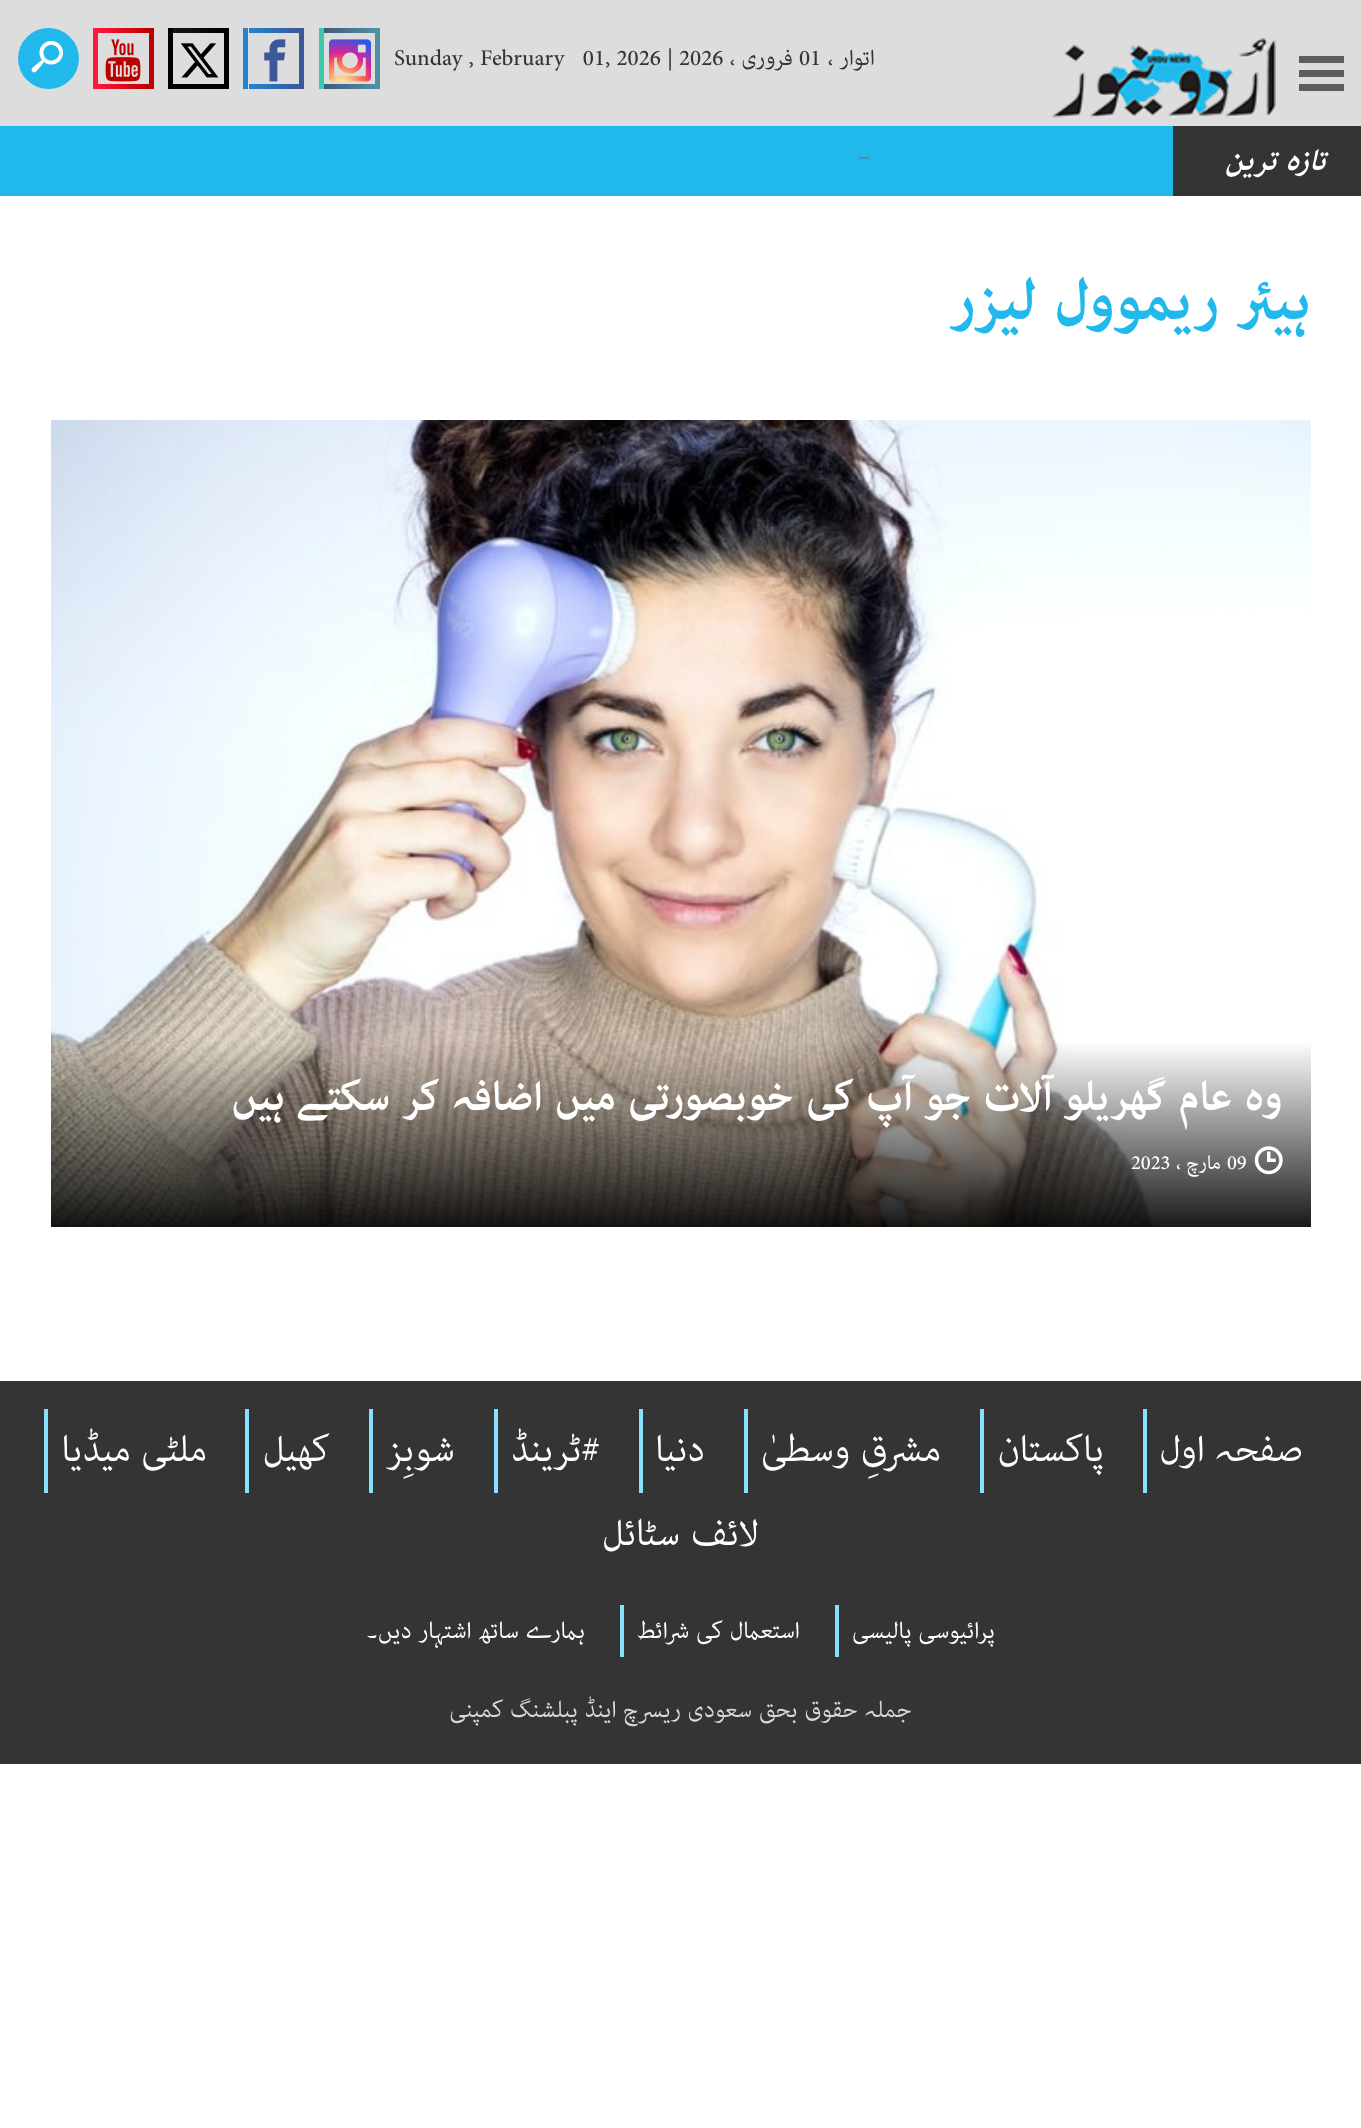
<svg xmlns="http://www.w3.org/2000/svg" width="1361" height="2128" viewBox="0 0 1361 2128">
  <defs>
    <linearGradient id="g1" gradientUnits="userSpaceOnUse" x1="324" y1="87" x2="375" y2="87"><stop offset="0" stop-color="#45577c"/><stop offset="1" stop-color="#4e90a4"/></linearGradient>
    <linearGradient id="g2" gradientUnits="userSpaceOnUse" x1="324" y1="31" x2="375" y2="31"><stop offset="0" stop-color="#45577c"/><stop offset="1" stop-color="#4e90a4"/></linearGradient>
    <linearGradient id="g3" gradientUnits="userSpaceOnUse" x1="249" y1="87" x2="299" y2="87"><stop offset="0" stop-color="#2383ce"/><stop offset="1" stop-color="#3b5998"/></linearGradient>
    <linearGradient id="g4" gradientUnits="userSpaceOnUse" x1="249" y1="31" x2="299" y2="31"><stop offset="0" stop-color="#2383ce"/><stop offset="1" stop-color="#3b5998"/></linearGradient>
    <linearGradient id="g5" gradientUnits="userSpaceOnUse" x1="173" y1="31" x2="224" y2="31"><stop offset="0" stop-color="#151515"/><stop offset="1" stop-color="#000000"/></linearGradient>
    <linearGradient id="g6" gradientUnits="userSpaceOnUse" x1="98" y1="87" x2="149" y2="87"><stop offset="0" stop-color="#fe183a"/><stop offset="1" stop-color="#bb0000"/></linearGradient>
    <linearGradient id="g7" gradientUnits="userSpaceOnUse" x1="98" y1="31" x2="149" y2="31"><stop offset="0" stop-color="#fe183a"/><stop offset="1" stop-color="#bb0000"/></linearGradient>
  </defs>
  <rect width="100%" height="100%" fill="#ffffff"/>
  <rect x="0" y="0" width="1361" height="126" fill="#dddddd"/>
  <rect x="1299" y="56" width="45" height="7" fill="#5d5d5d"/>
  <rect x="1299" y="70" width="45" height="7" fill="#5d5d5d"/>
  <rect x="1299" y="84" width="45" height="7" fill="#5d5d5d"/>
  <image x="1051" y="38" width="225" height="80" href="img1.png"/>
  <text x="875" y="65" font-family="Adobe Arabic" font-size="31.5" direction="rtl" fill="#343434">اتوار ،</text>
  <text x="799" y="65" font-family="Adobe Arabic" font-size="31.5" fill="#343434">01</text>
  <text x="793" y="65" font-family="Adobe Arabic" font-size="31.5" direction="rtl" fill="#343434">فروری ،</text>
  <text x="679" y="65" font-family="Adobe Arabic" font-size="31.5" fill="#343434">2026</text>
  <text x="667" y="65" font-family="Adobe Arabic" font-size="31.5" fill="#343434">|</text>
  <text x="394" y="65" font-family="Adobe Arabic" font-size="31.5" fill="#343434" xml:space="preserve">Sunday , February   01, 2026</text>
  <rect x="324" y="84" width="51" height="5" fill="url(#g1)"/>
  <rect x="324" y="28" width="51" height="5" fill="url(#g2)"/>
  <rect x="375" y="28" width="5" height="61" fill="#4e90a4"/>
  <rect x="319" y="28" width="5" height="61" fill="#3ec8ac"/>
  <image x="329" y="39" width="42" height="43" href="img2.png"/>
  <rect x="249" y="84" width="50" height="5" fill="url(#g3)"/>
  <rect x="249" y="28" width="50" height="5" fill="url(#g4)"/>
  <rect x="299" y="28" width="5" height="61" fill="#3b5998"/>
  <rect x="243" y="28" width="5" height="61" fill="#2383ce"/>
  <image x="264" y="39" width="22" height="43" href="img3.png"/>
  <rect x="173" y="84" width="51" height="5" fill="#000000"/>
  <rect x="173" y="28" width="51" height="5" fill="url(#g5)"/>
  <rect x="224" y="28" width="5" height="61" fill="#000000"/>
  <rect x="168" y="28" width="5" height="61" fill="#000000"/>
  <image x="180" y="43" width="39" height="35" href="img4.png"/>
  <rect x="98" y="84" width="51" height="5" fill="url(#g6)"/>
  <rect x="98" y="28" width="51" height="5" fill="url(#g7)"/>
  <rect x="149" y="28" width="5" height="61" fill="#bb0000"/>
  <rect x="93" y="28" width="5" height="61" fill="#fe183a"/>
  <image x="105" y="39" width="36" height="43" href="img5.png"/>
  <circle cx="48.5" cy="58.5" r="30.5" fill="#21b9eb"/>
  <image x="31" y="40" width="33" height="33" href="img6.png"/>
  <rect x="0" y="126" width="18" height="70" fill="#21b9eb"/>
  <rect x="1173" y="126" width="188" height="70" fill="#343434"/>
  <rect x="18" y="126" width="1155" height="70" fill="#21b9eb"/>
  <text x="1326" y="170" font-family="Adobe Arabic" font-size="42" font-weight="bold" font-style="italic" direction="rtl" fill="#ffffff">تازہ ترین</text>
  <text x="859" y="156" font-family="Adobe Arabic" font-size="28" fill="#6c6c6c">_</text>
  <text x="1311" y="319" font-family="Adobe Arabic" font-size="84" font-weight="bold" direction="rtl" fill="#21b9eb">ہیئر ریموول لیزر</text>
  <image x="51" y="420" width="1260" height="807" href="img7.png"/>
  <text x="1283" y="1110" font-family="Adobe Arabic" font-size="59.5" font-weight="bold" direction="rtl" fill="#ffffff">وہ عام گھریلو آلات جو آپ کی خوبصورتی میں اضافہ کر سکتے ہیں</text>
  <image x="1254" y="1146" width="29" height="29" href="img8.png"/>
  <text x="1227" y="1169" font-family="Adobe Arabic" font-size="28" fill="#ffffff">09</text>
  <text x="1221" y="1169" font-family="Adobe Arabic" font-size="28" direction="rtl" fill="#ffffff">مارچ ،</text>
  <text x="1131" y="1169" font-family="Adobe Arabic" font-size="28" fill="#ffffff">2023</text>
  <rect x="0" y="1381" width="1361" height="383" fill="#343434"/>
  <rect x="1143" y="1409" width="4" height="84" fill="#85e1ff"/>
  <text x="1303" y="1461" font-family="Adobe Arabic" font-size="52.5" direction="rtl" fill="#ffffff">صفحہ اول</text>
  <rect x="980" y="1409" width="4" height="84" fill="#85e1ff"/>
  <text x="1104" y="1461" font-family="Adobe Arabic" font-size="52.5" direction="rtl" fill="#ffffff">پاکستان</text>
  <rect x="744" y="1409" width="4" height="84" fill="#85e1ff"/>
  <text x="941" y="1461" font-family="Adobe Arabic" font-size="52.5" direction="rtl" fill="#ffffff">مشرقِ وسطیٰ</text>
  <rect x="639" y="1409" width="4" height="84" fill="#85e1ff"/>
  <text x="705" y="1461" font-family="Adobe Arabic" font-size="52.5" direction="rtl" fill="#ffffff">دنیا</text>
  <rect x="494" y="1409" width="4" height="84" fill="#85e1ff"/>
  <text x="600" y="1461" font-family="Adobe Arabic" font-size="52.5" direction="rtl" fill="#ffffff">#ٹرینڈ</text>
  <rect x="369" y="1409" width="4" height="84" fill="#85e1ff"/>
  <text x="455" y="1461" font-family="Adobe Arabic" font-size="52.5" direction="rtl" fill="#ffffff">شوبِز</text>
  <rect x="245" y="1409" width="4" height="84" fill="#85e1ff"/>
  <text x="330" y="1461" font-family="Adobe Arabic" font-size="52.5" direction="rtl" fill="#ffffff">کھیل</text>
  <rect x="44" y="1409" width="4" height="84" fill="#85e1ff"/>
  <text x="207" y="1461" font-family="Adobe Arabic" font-size="52.5" direction="rtl" fill="#ffffff">ملٹی میڈیا</text>
  <text x="759" y="1545" font-family="Adobe Arabic" font-size="52.5" direction="rtl" fill="#ffffff">لائف سٹائل</text>
  <rect x="835" y="1605" width="4" height="52" fill="#85e1ff"/>
  <text x="995" y="1638" font-family="Adobe Arabic" font-size="33.25" direction="rtl" fill="#ffffff">پرائیوسی پالیسی</text>
  <rect x="620" y="1605" width="4" height="52" fill="#85e1ff"/>
  <text x="800" y="1638" font-family="Adobe Arabic" font-size="33.25" direction="rtl" fill="#ffffff">استعمال کی شرائط</text>
  <text x="585" y="1638" font-family="Adobe Arabic" font-size="33.25" direction="rtl" fill="#ffffff">ہمارے ساتھ اشتہار دیں۔</text>
  <text x="912" y="1717" font-family="Adobe Arabic" font-size="33.25" direction="rtl" fill="#d9d9d9">جملہ حقوق بحق سعودی ریسرچ اینڈ پبلشنگ کمپنی</text>
</svg>
